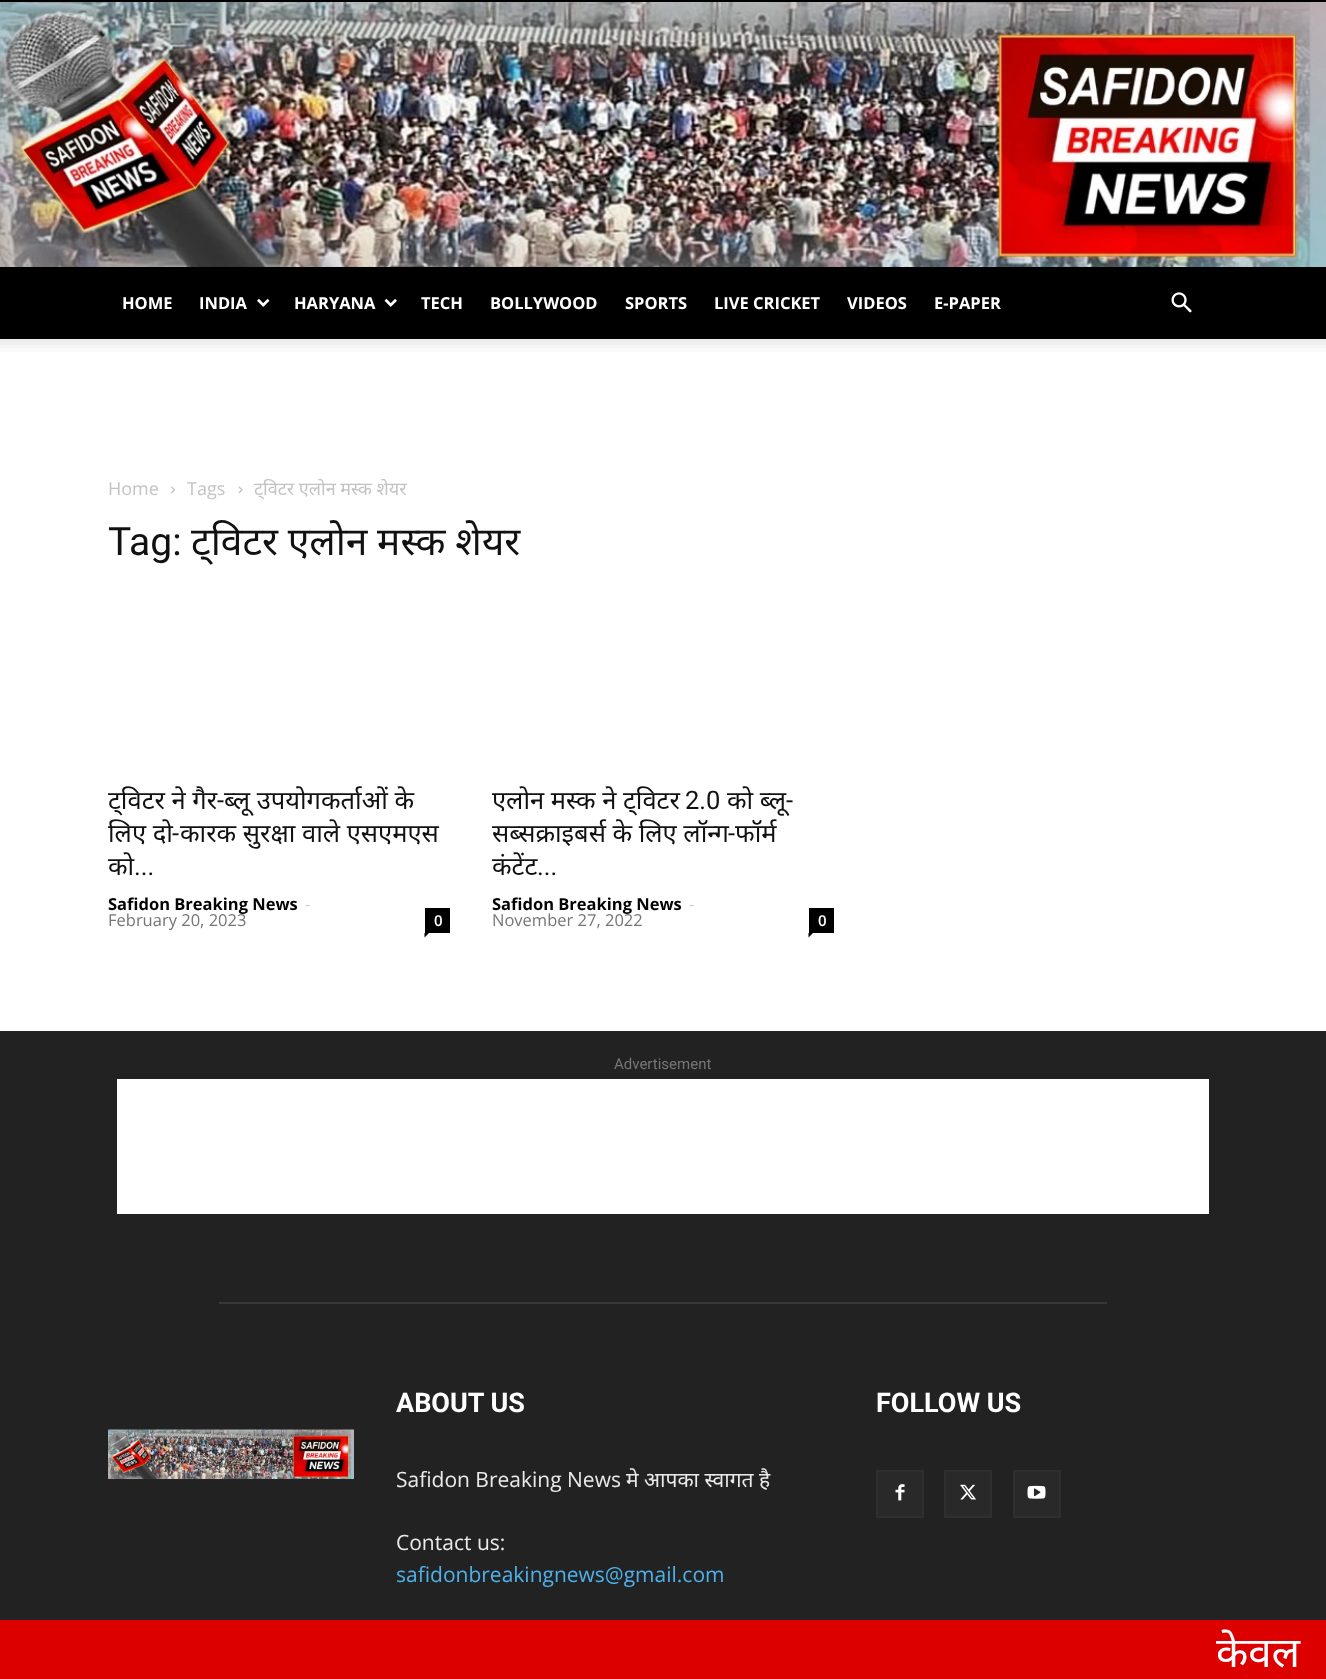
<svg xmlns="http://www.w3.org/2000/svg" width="1326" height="1679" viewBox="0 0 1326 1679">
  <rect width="100%" height="100%" fill="#ffffff"/>
  <rect x="0" y="0" width="1326" height="2" fill="#000000"/>
  <image x="0" y="2" width="1326" height="265" href="img1.png"/>
  <rect x="0" y="267" width="1326" height="72" fill="#000000"/>
  <text x="122" y="309" font-family="Open Sans" font-size="16.5" font-weight="bold" fill="#ffffff">HOME</text>
  <text x="199" y="309" font-family="Open Sans" font-size="16.5" font-weight="bold" fill="#ffffff">INDIA</text>
  <image x="257" y="299" width="13" height="8" href="img2.png"/>
  <text x="294" y="309" font-family="Open Sans" font-size="16.5" font-weight="bold" fill="#ffffff">HARYANA</text>
  <image x="384" y="299" width="13" height="8" href="img3.png"/>
  <text x="421" y="309" font-family="Open Sans" font-size="16.5" font-weight="bold" fill="#ffffff">TECH</text>
  <text x="490" y="309" font-family="Open Sans" font-size="16.5" font-weight="bold" fill="#ffffff">BOLLYWOOD</text>
  <text x="625" y="309" font-family="Open Sans" font-size="16.5" font-weight="bold" fill="#ffffff">SPORTS</text>
  <text x="714" y="309" font-family="Open Sans" font-size="16.5" font-weight="bold" fill="#ffffff">LIVE CRICKET</text>
  <text x="847" y="309" font-family="Open Sans" font-size="16.5" font-weight="bold" fill="#ffffff">VIDEOS</text>
  <text x="934" y="309" font-family="Open Sans" font-size="16.5" font-weight="bold" fill="#ffffff">E-PAPER</text>
  <image x="1171" y="292" width="21" height="21" href="img4.png"/>
  <image x="0" y="339" width="1326" height="13" href="img5.png"/>
  <text x="108" y="495" font-family="Open Sans" font-size="18" fill="#c3c3c3">Home</text>
  <image x="171" y="486" width="4" height="8" href="img6.png"/>
  <text x="187" y="495" font-family="Open Sans" font-size="18" fill="#c3c3c3">Tags</text>
  <image x="238" y="486" width="5" height="8" href="img7.png"/>
  <text x="254" y="495" font-family="Noto Sans" font-size="18" fill="#c3c3c3">ट्विटर एलोन मस्क शेयर</text>
  <text x="108" y="555" font-family="Roboto" font-size="39" fill="#111111">Tag:</text>
  <text x="191" y="555" word-spacing="-0.5" font-family="Noto Sans" font-size="39" fill="#111111">ट्विटर एलोन मस्क शेयर</text>
  <text x="108" y="809" font-family="Noto Sans" font-size="25.5" fill="#111111">ट्विटर ने गैर</text>
  <text x="217" y="809" font-family="Roboto" font-size="25.5" fill="#111111">-</text>
  <text x="224" y="809" font-family="Noto Sans" font-size="25.5" fill="#111111">ब्लू उपयोगकर्ताओं के</text>
  <text x="108" y="842" font-family="Noto Sans" font-size="25.5" fill="#111111">लिए दो</text>
  <text x="172" y="842" font-family="Roboto" font-size="25.5" fill="#111111">-</text>
  <text x="180" y="842" font-family="Noto Sans" font-size="25.5" fill="#111111">कारक सुरक्षा वाले एसएमएस</text>
  <text x="108" y="875" font-family="Noto Sans" font-size="25.5" fill="#111111">को</text>
  <text x="134" y="875" font-family="Roboto" font-size="25.5" fill="#111111">...</text>
  <text x="108" y="910" font-family="Open Sans" font-size="16.5" font-weight="bold" fill="#000000">Safidon Breaking News</text>
  <text x="305" y="910" font-family="Open Sans" font-size="16.5" fill="#cccccc">-</text>
  <text x="108" y="926" font-family="Open Sans" font-size="16.5" fill="#767676">February 20, 2023</text>
  <rect x="425" y="908" width="25" height="25" fill="#000000"/>
  <text x="434" y="926" font-family="Open Sans" font-size="15" font-weight="600" fill="#ffffff">0</text>
  <path d="M424.5 933H429L424.5 937.5Z" fill="#000000"/>
  <text x="492" y="809" font-family="Noto Sans" font-size="25.5" fill="#111111">एलोन मस्क ने ट्विटर</text>
  <text x="685" y="809" font-family="Roboto" font-size="25.5" fill="#111111">2.0</text>
  <text x="727" y="809" font-family="Noto Sans" font-size="25.5" fill="#111111">को ब्लू</text>
  <text x="786" y="809" font-family="Roboto" font-size="25.5" fill="#111111">-</text>
  <text x="492" y="842" font-family="Noto Sans" font-size="25.5" fill="#111111">सब्सक्राइबर्स के लिए लॉन्ग</text>
  <text x="728" y="842" font-family="Roboto" font-size="25.5" fill="#111111">-</text>
  <text x="735" y="842" font-family="Noto Sans" font-size="25.5" fill="#111111">फॉर्म</text>
  <text x="492" y="875" font-family="Noto Sans" font-size="25.5" fill="#111111">कंटेंट</text>
  <text x="537" y="875" font-family="Roboto" font-size="25.5" fill="#111111">...</text>
  <text x="492" y="910" font-family="Open Sans" font-size="16.5" font-weight="bold" fill="#000000">Safidon Breaking News</text>
  <text x="689" y="910" font-family="Open Sans" font-size="16.5" fill="#cccccc">-</text>
  <text x="492" y="926" font-family="Open Sans" font-size="16.5" fill="#767676">November 27, 2022</text>
  <rect x="809" y="908" width="25" height="25" fill="#000000"/>
  <text x="818" y="926" font-family="Open Sans" font-size="15" font-weight="600" fill="#ffffff">0</text>
  <path d="M808.5 933H813L808.5 937.5Z" fill="#000000"/>
  <rect x="0" y="1031" width="1326" height="589" fill="#222222"/>
  <text x="614" y="1069" font-family="Roboto" font-size="15" fill="#767676">Advertisement</text>
  <rect x="117" y="1079" width="1092" height="135" fill="#ffffff"/>
  <rect x="219" y="1302" width="888" height="2" fill="#383838"/>
  <text x="396" y="1412" font-family="Roboto" font-size="27" font-weight="bold" fill="#ffffff">ABOUT US</text>
  <text x="396" y="1487" font-family="Open Sans" font-size="21" fill="#eaeaea">Safidon Breaking News</text>
  <text x="626" y="1487" font-family="Noto Sans" font-size="21" fill="#eaeaea">मे आपका स्वागत है</text>
  <text x="396" y="1550" font-family="Open Sans" font-size="21" fill="#eaeaea">Contact us:</text>
  <text x="396" y="1582" font-family="Open Sans" font-size="21" fill="#4db2ec">safidonbreakingnews@gmail.com</text>
  <text x="876" y="1412" font-family="Roboto" font-size="27" font-weight="bold" fill="#ffffff">FOLLOW US</text>
  <rect x="878" y="1472" width="44" height="44" fill="#292929"/>
  <image x="895" y="1484" width="10" height="17" href="img8.png"/>
  <rect x="877" y="1471" width="46" height="46" fill="none" stroke="#2f2f2f" stroke-width="2"/>
  <rect x="946" y="1472" width="44" height="44" fill="#292929"/>
  <image x="960" y="1484" width="16" height="16" href="img9.png"/>
  <rect x="945" y="1471" width="46" height="46" fill="none" stroke="#2f2f2f" stroke-width="2"/>
  <rect x="1015" y="1472" width="44" height="44" fill="#292929"/>
  <image x="1027" y="1485" width="19" height="14" href="img10.png"/>
  <rect x="1014" y="1471" width="46" height="46" fill="none" stroke="#2f2f2f" stroke-width="2"/>
  <image x="108" y="1429" width="246" height="50" href="img11.png"/>
  <rect x="0" y="1620" width="1326" height="59" fill="#dd0000"/>
  <text x="1216" y="1667" font-family="Noto Sans" font-size="42" fill="#ffffff">केवल</text>
</svg>
